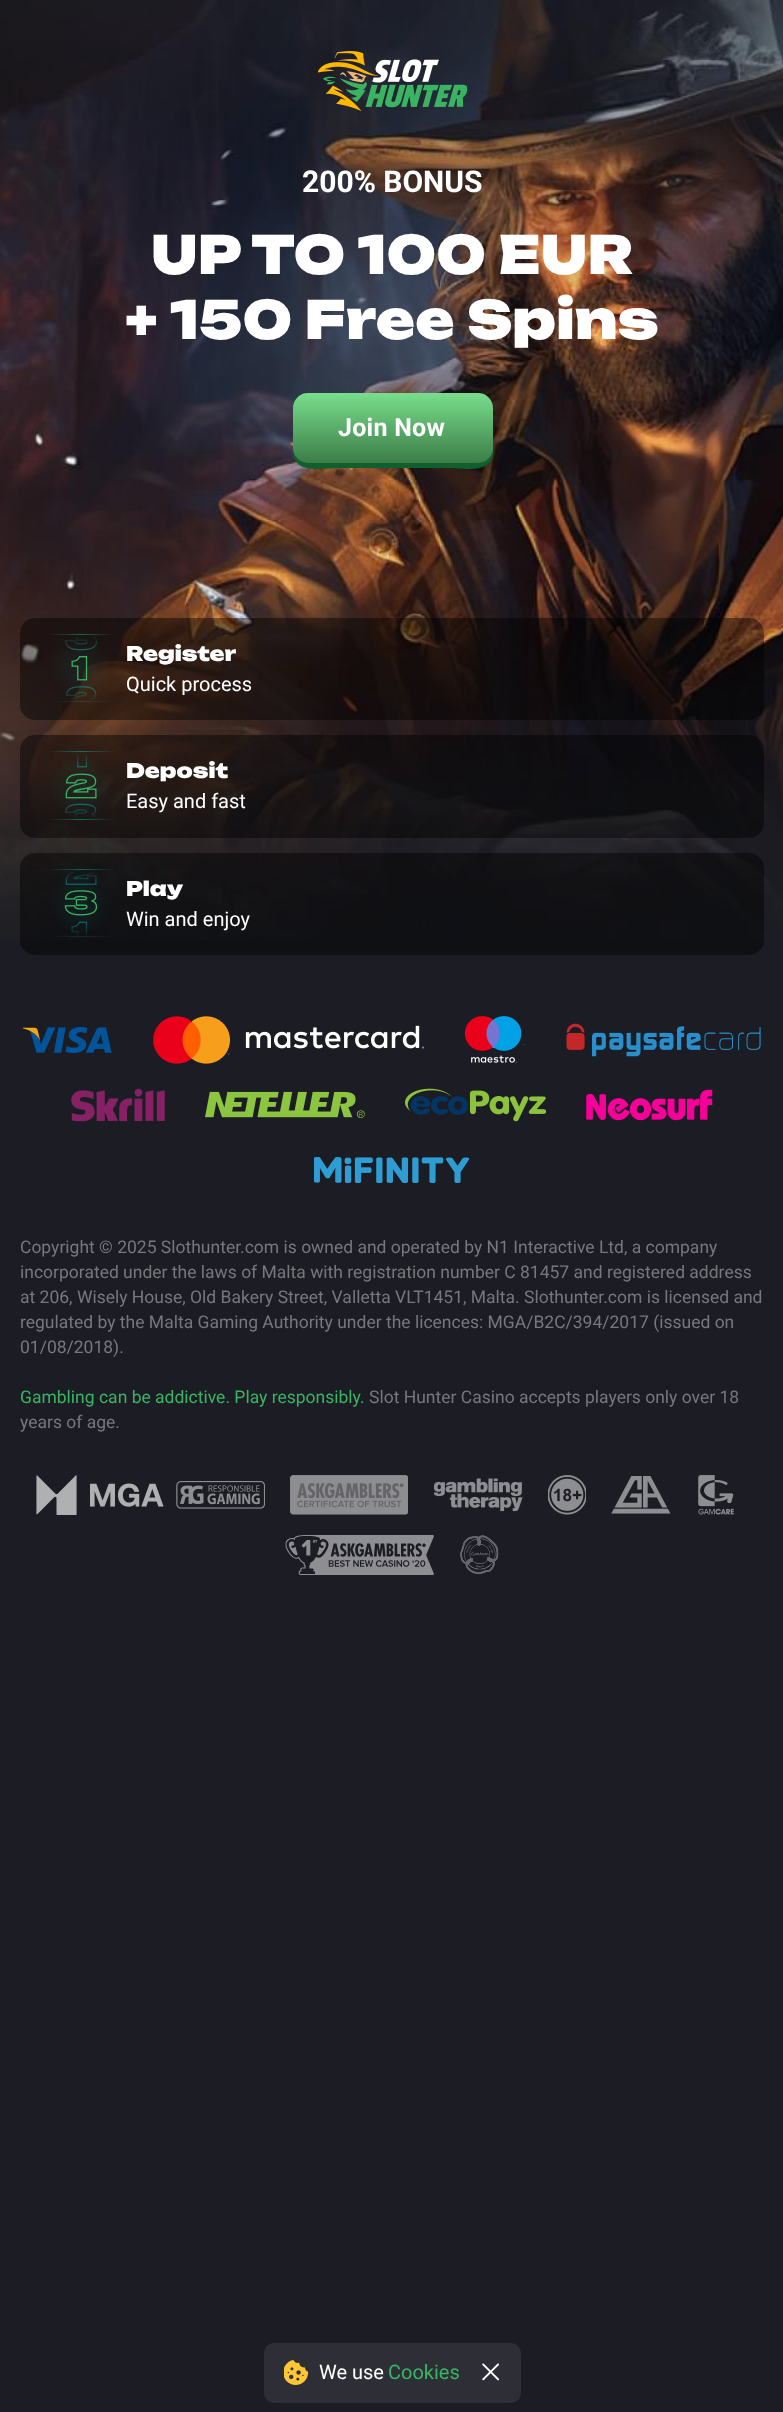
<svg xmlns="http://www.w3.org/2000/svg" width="783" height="2412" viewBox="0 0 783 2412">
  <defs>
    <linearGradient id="g1" gradientUnits="userSpaceOnUse" x1="393" y1="463" x2="393" y2="393"><stop offset="0" stop-color="#3c7d47"/><stop offset="1" stop-color="#78de8c"/></linearGradient>
  </defs>
  <rect width="100%" height="100%" fill="#1c1d24"/>
  <image x="0" y="0" width="783" height="940" href="img1.png"/>
  <image x="318" y="51" width="150" height="61" href="img2.png"/>
  <text x="302" y="192" font-family="Roboto" font-size="30" font-weight="bold" fill="#ffffff">200% BONUS</text>
  <text x="151" y="274" font-family="Unbounded" font-size="52.5" font-weight="900" fill="#ffffff">UP TO 100 EUR</text>
  <text x="125" y="339" font-family="Unbounded" font-size="52.5" font-weight="900" fill="#ffffff">+ 150 Free Spins</text>
  <path d="M293 451C293 475 322 468 336 468H450C460 468 489 474 493 456V420L492 409V448C492 456 486 462 478 462H308C301 462 295 458 293 451Z" fill="#115f2e"/>
  <rect x="293" y="393" width="200" height="70" rx="15" fill="url(#g1)"/>
  <text x="338" y="436" font-family="Roboto" font-size="25" font-weight="bold" letter-spacing="0.25" fill="#ffffff">Join Now</text>
  <rect x="20" y="618" width="744" height="102" rx="15" fill="#000000" fill-opacity="0.44"/>
  <image x="50" y="634" width="64" height="68" href="img3.png"/>
  <text x="126" y="661" font-family="Unbounded" font-size="20" font-weight="900" fill="#ffffff">Register</text>
  <text x="126" y="691" font-family="Roboto" font-size="20" fill="#ffffff">Quick process</text>
  <rect x="20" y="735" width="744" height="103" rx="15" fill="#000000" fill-opacity="0.44"/>
  <image x="50" y="751" width="64" height="69" href="img4.png"/>
  <text x="126" y="778" font-family="Unbounded" font-size="20" font-weight="900" fill="#ffffff">Deposit</text>
  <text x="126" y="808" font-family="Roboto" font-size="20" fill="#ffffff">Easy and fast</text>
  <rect x="20" y="853" width="744" height="102" rx="15" fill="#000000" fill-opacity="0.44"/>
  <image x="50" y="869" width="64" height="68" href="img5.png"/>
  <text x="126" y="896" font-family="Unbounded" font-size="20" font-weight="900" fill="#ffffff">Play</text>
  <text x="126" y="926" font-family="Roboto" font-size="20" fill="#ffffff">Win and enjoy</text>
  <image x="23" y="1027" width="89" height="26" href="img6.png"/>
  <image x="153" y="1016" width="271" height="48" href="img7.png"/>
  <image x="464" y="1016" width="62" height="47" href="img8.png"/>
  <image x="566" y="1023" width="195" height="34" href="img9.png"/>
  <image x="71" y="1088" width="94" height="34" href="img10.png"/>
  <image x="205" y="1091" width="160" height="27" href="img11.png"/>
  <image x="405" y="1088" width="141" height="34" href="img12.png"/>
  <image x="586" y="1089" width="127" height="32" href="img13.png"/>
  <image x="314" y="1157" width="156" height="26" href="img14.png"/>
  <text x="20" y="1253" font-family="Roboto" font-size="17.5" fill="#77777c">Copyright © 2025 Slothunter.com is owned and operated by N1 Interactive Ltd, a company</text>
  <text x="20" y="1278" font-family="Roboto" font-size="17.5" fill="#77777c">incorporated under the laws of Malta with registration number C 81457 and registered address</text>
  <text x="20" y="1303" font-family="Roboto" font-size="17.5" fill="#77777c">at 206, Wisely House, Old Bakery Street, Valletta VLT1451, Malta. Slothunter.com is licensed and</text>
  <text x="20" y="1328" font-family="Roboto" font-size="17.5" fill="#77777c">regulated by the Malta Gaming Authority under the licences: MGA/B2C/394/2017 (issued on</text>
  <text x="20" y="1353" font-family="Roboto" font-size="17.5" fill="#77777c">01/08/2018).</text>
  <text x="20" y="1403" font-family="Roboto" font-size="17.5" fill="#3ab463">Gambling can be addictive. Play responsibly.</text>
  <text x="369" y="1403" font-family="Roboto" font-size="17.5" fill="#77777c">Slot Hunter Casino accepts players only over 18</text>
  <text x="20" y="1428" font-family="Roboto" font-size="17.5" fill="#77777c">years of age.</text>
  <image x="36" y="1475" width="128" height="40" href="img15.png"/>
  <image x="176" y="1481" width="89" height="28" href="img16.png"/>
  <image x="290" y="1475" width="118" height="40" href="img17.png"/>
  <image x="434" y="1478" width="89" height="34" href="img18.png"/>
  <image x="548" y="1475" width="38" height="40" href="img19.png"/>
  <image x="611" y="1476" width="60" height="38" href="img20.png"/>
  <image x="698" y="1475" width="36" height="40" href="img21.png"/>
  <image x="285" y="1535" width="149" height="40" href="img22.png"/>
  <image x="460" y="1535" width="39" height="40" href="img23.png"/>
  <rect x="264" y="2343" width="257" height="60" rx="10" fill="#2e2f36"/>
  <image x="284" y="2360" width="25" height="25" href="img24.png"/>
  <text x="319" y="2379" font-family="Roboto" font-size="20" fill="#ffffff">We use</text>
  <text x="388" y="2379" font-family="Roboto" font-size="20" fill="#3ab463">Cookies</text>
  <image x="482" y="2363" width="17" height="18" href="img25.png"/>
</svg>
